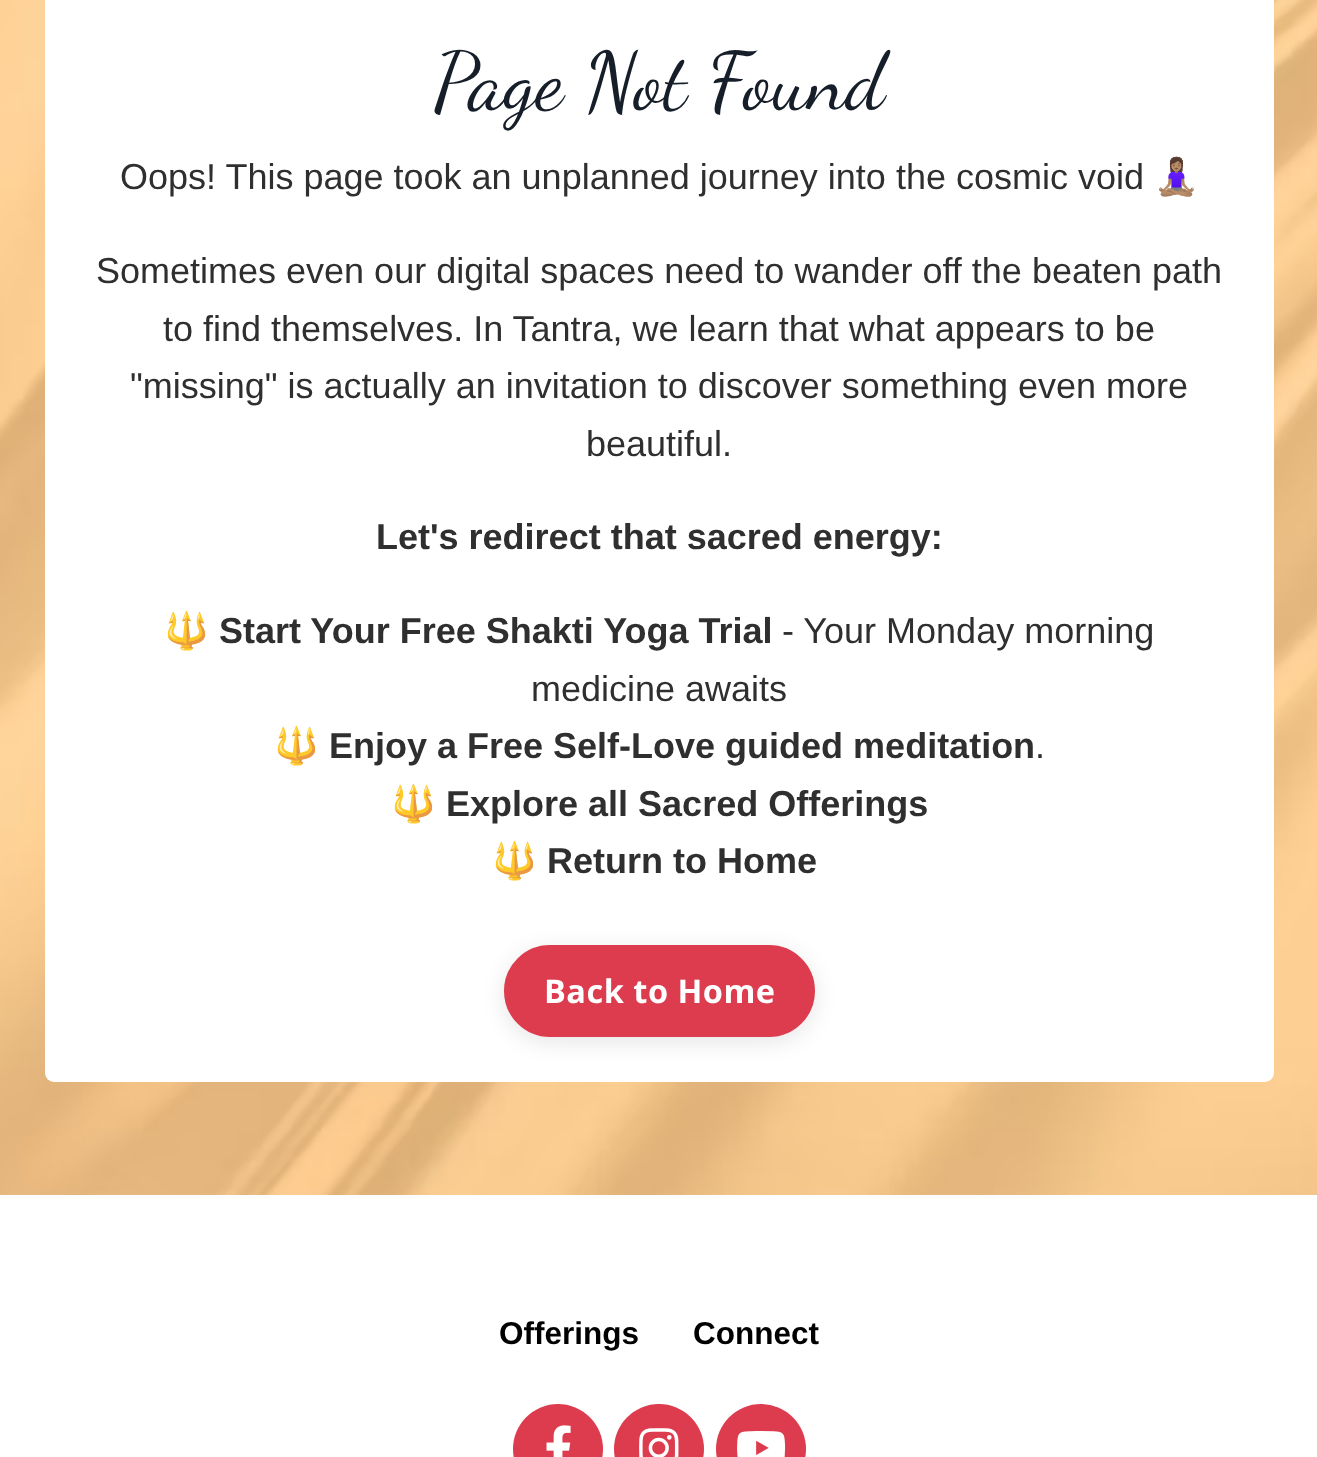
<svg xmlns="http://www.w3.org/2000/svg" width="1317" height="1457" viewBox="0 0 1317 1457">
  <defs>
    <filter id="blur1" x="-50%" y="-200%" width="200%" height="500%"><feGaussianBlur stdDeviation="11"/></filter>
  </defs>
  <rect width="100%" height="100%" fill="#ffffff"/>
  <image x="0" y="0" width="1317" height="1195" href="img1.png"/>
  <rect x="45" y="-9" width="1229" height="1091" rx="9" fill="#ffffff"/>
  <text x="433" y="108" font-family="Dancing Script" font-size="81" fill="#161e2a">Page Not Found</text>
  <text x="120" y="189" font-family="Liberation Sans" font-size="36" fill="#2f2f2f">Oops! This page took an unplanned journey into the cosmic void</text>
  <text x="1154" y="189" font-family="Noto Color Emoji" font-size="36" fill="#2f2f2f">🧘🏽‍♀️</text>
  <text x="96" y="283" font-family="Liberation Sans" font-size="36" fill="#2f2f2f">Sometimes even our digital spaces need to wander off the beaten path</text>
  <text x="163" y="341" font-family="Liberation Sans" font-size="36" fill="#2f2f2f">to find themselves. In Tantra, we learn that what appears to be</text>
  <text x="130" y="398" font-family="Liberation Sans" font-size="36" fill="#2f2f2f">"missing" is actually an invitation to discover something even more</text>
  <text x="586" y="456" font-family="Liberation Sans" font-size="36" fill="#2f2f2f">beautiful.</text>
  <text x="376" y="549" font-family="Liberation Sans" font-size="36" font-weight="bold" fill="#2f2f2f">Let's redirect that sacred energy:</text>
  <text x="164" y="643" font-family="Noto Color Emoji" font-size="36" fill="#2f2f2f">🔱</text>
  <text x="219" y="643" font-family="Liberation Sans" font-size="36" font-weight="bold" fill="#2f2f2f">Start Your Free Shakti Yoga Trial</text>
  <text x="782" y="643" font-family="Liberation Sans" font-size="36" fill="#2f2f2f">- Your Monday morning</text>
  <text x="531" y="701" font-family="Liberation Sans" font-size="36" fill="#2f2f2f">medicine awaits</text>
  <text x="274" y="758" font-family="Noto Color Emoji" font-size="36" fill="#2f2f2f">🔱</text>
  <text x="329" y="758" font-family="Liberation Sans" font-size="36" font-weight="bold" fill="#2f2f2f">Enjoy a Free Self-Love guided meditation</text>
  <text x="1035" y="758" font-family="Liberation Sans" font-size="36" fill="#2f2f2f">.</text>
  <text x="391" y="816" font-family="Noto Color Emoji" font-size="36" fill="#2f2f2f">🔱</text>
  <text x="446" y="816" font-family="Liberation Sans" font-size="36" font-weight="bold" fill="#2f2f2f">Explore all Sacred Offerings</text>
  <text x="492" y="873" font-family="Noto Color Emoji" font-size="36" fill="#2f2f2f">🔱</text>
  <text x="547" y="873" font-family="Liberation Sans" font-size="36" font-weight="bold" fill="#2f2f2f">Return to Home</text>
  <rect x="504" y="950" width="311" height="92" rx="46" fill="#000000" fill-opacity="0.1" filter="url(#blur1)"/>
  <rect x="506.5" y="947.5" width="306" height="87" rx="43.5" fill="#dc3c4e" stroke="#dc3c4e" stroke-width="5"/>
  <text x="544" y="1003" font-family="Open Sans" font-size="32.5" font-weight="bold" letter-spacing="0.5" fill="#ffffff">Back to Home</text>
  <text x="499" y="1344" font-family="Liberation Sans" font-size="31.5" font-weight="bold" fill="#000000">Offerings</text>
  <text x="693" y="1344" font-family="Liberation Sans" font-size="31.5" font-weight="bold" fill="#000000">Connect</text>
  <circle cx="558" cy="1449" r="45" fill="#dc3c4e"/>
  <image x="546" y="1425" width="25" height="32" href="img2.png"/>
  <circle cx="659" cy="1449" r="45" fill="#dc3c4e"/>
  <image x="639" y="1428" width="40" height="29" href="img3.png"/>
  <circle cx="761" cy="1449" r="45" fill="#dc3c4e"/>
  <image x="737" y="1431" width="49" height="26" href="img4.png"/>
</svg>
